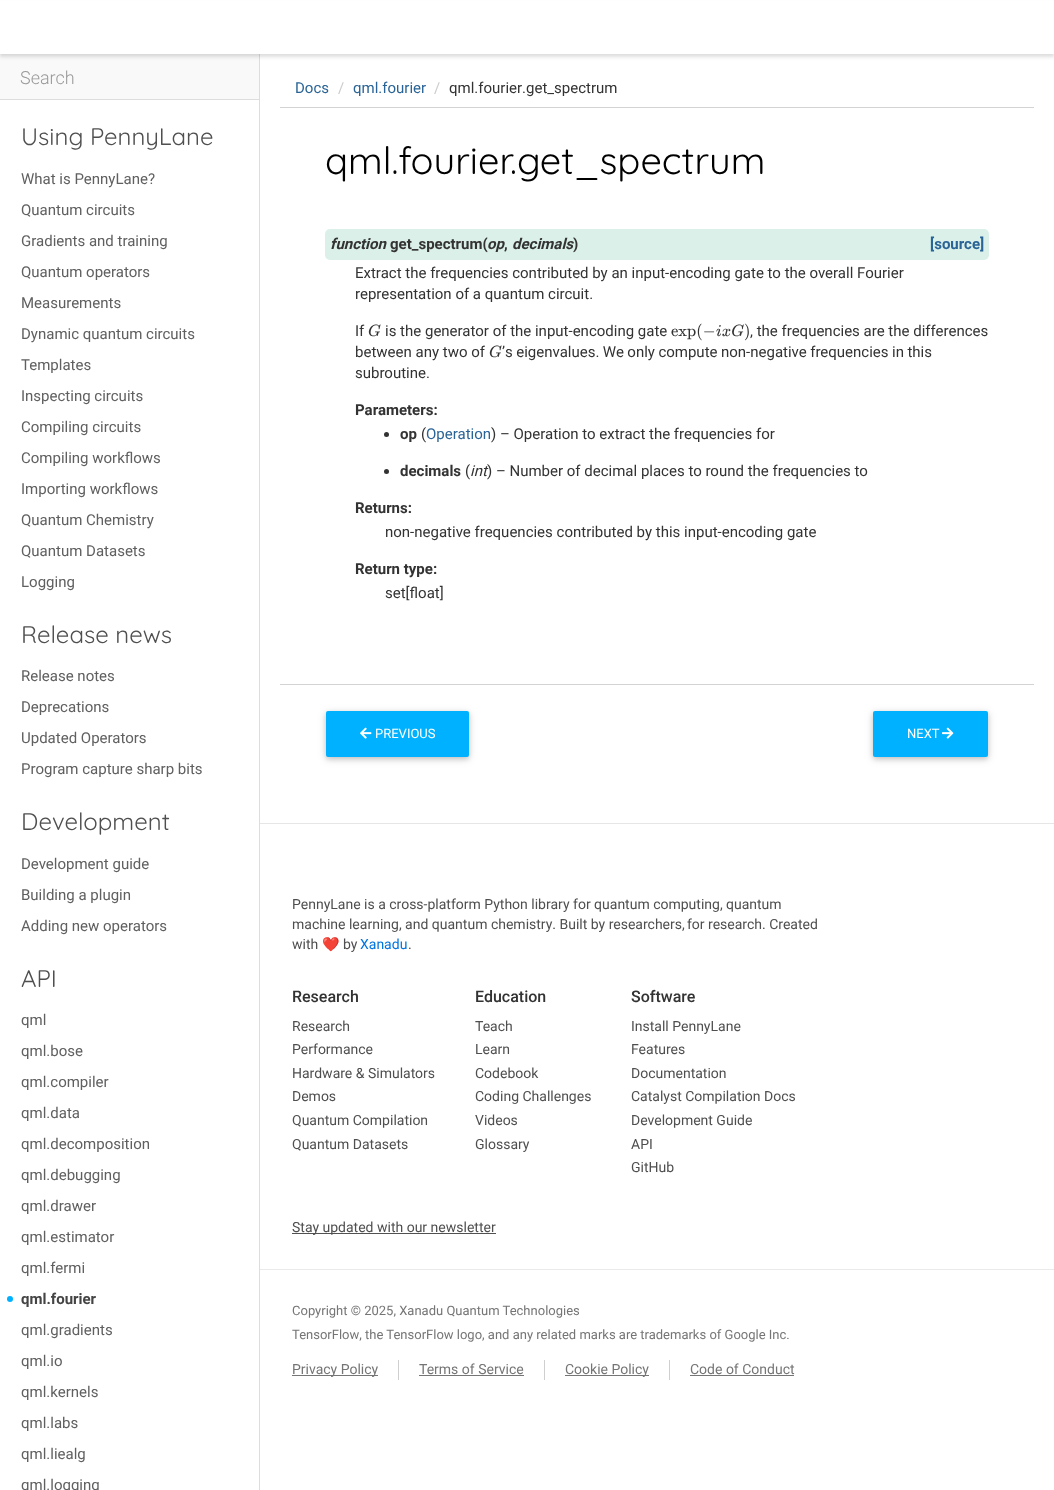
<svg xmlns="http://www.w3.org/2000/svg" width="1054" height="1490" viewBox="0 0 1054 1490">
  <defs>
    <filter id="blur1" x="-50%" y="-200%" width="200%" height="500%"><feGaussianBlur stdDeviation="1"/></filter>
    <filter id="blur2" x="-50%" y="-200%" width="200%" height="500%"><feGaussianBlur stdDeviation="1.5"/></filter>
    <filter id="blur3" x="-50%" y="-200%" width="200%" height="500%"><feGaussianBlur stdDeviation="5"/></filter>
    <filter id="blur4" x="-50%" y="-200%" width="200%" height="500%"><feGaussianBlur stdDeviation="2.5"/></filter>
  </defs>
  <rect width="100%" height="100%" fill="#ffffff"/>
  <rect x="259" y="50" width="1" height="1440" fill="#dddddd"/>
  <rect x="0" y="54" width="259" height="45" fill="#f9f9f9"/>
  <rect x="0" y="2" width="1054" height="54" fill="#000000" fill-opacity="0.06" filter="url(#blur1)"/>
  <rect x="0" y="4" width="1054" height="54" fill="#000000" fill-opacity="0.07" filter="url(#blur2)"/>
  <rect x="0" y="1" width="1054" height="53" fill="#ffffff"/>
  <text x="20" y="84" font-family="Roboto" font-size="18" font-weight="300" fill="#999999">Search</text>
  <rect x="0" y="99" width="259" height="1" fill="#dddddd"/>
  <text x="21" y="145" font-family="Quicksand" font-size="24" fill="#4f4f4f">Using PennyLane</text>
  <text x="21" y="184" font-family="Roboto" font-size="15" fill="#606060">What is PennyLane?</text>
  <text x="21" y="215" font-family="Roboto" font-size="15" fill="#606060">Quantum circuits</text>
  <text x="21" y="246" font-family="Roboto" font-size="15" fill="#606060">Gradients and training</text>
  <text x="21" y="277" font-family="Roboto" font-size="15" fill="#606060">Quantum operators</text>
  <text x="21" y="308" font-family="Roboto" font-size="15" fill="#606060">Measurements</text>
  <text x="21" y="339" font-family="Roboto" font-size="15" fill="#606060">Dynamic quantum circuits</text>
  <text x="21" y="370" font-family="Roboto" font-size="15" fill="#606060">Templates</text>
  <text x="21" y="401" font-family="Roboto" font-size="15" fill="#606060">Inspecting circuits</text>
  <text x="21" y="432" font-family="Roboto" font-size="15" fill="#606060">Compiling circuits</text>
  <text x="21" y="463" font-family="Roboto" font-size="15" fill="#606060">Compiling workflows</text>
  <text x="21" y="494" font-family="Roboto" font-size="15" fill="#606060">Importing workflows</text>
  <text x="21" y="525" font-family="Roboto" font-size="15" fill="#606060">Quantum Chemistry</text>
  <text x="21" y="556" font-family="Roboto" font-size="15" fill="#606060">Quantum Datasets</text>
  <text x="21" y="587" font-family="Roboto" font-size="15" fill="#606060">Logging</text>
  <text x="21" y="643" font-family="Quicksand" font-size="24" fill="#4f4f4f">Release news</text>
  <text x="21" y="681" font-family="Roboto" font-size="15" fill="#606060">Release notes</text>
  <text x="21" y="712" font-family="Roboto" font-size="15" fill="#606060">Deprecations</text>
  <text x="21" y="743" font-family="Roboto" font-size="15" fill="#606060">Updated Operators</text>
  <text x="21" y="774" font-family="Roboto" font-size="15" fill="#606060">Program capture sharp bits</text>
  <text x="21" y="830" font-family="Quicksand" font-size="24" fill="#4f4f4f">Development</text>
  <text x="21" y="869" font-family="Roboto" font-size="15" fill="#606060">Development guide</text>
  <text x="21" y="900" font-family="Roboto" font-size="15" fill="#606060">Building a plugin</text>
  <text x="21" y="931" font-family="Roboto" font-size="15" fill="#606060">Adding new operators</text>
  <text x="21" y="987" font-family="Quicksand" font-size="24" fill="#4f4f4f">API</text>
  <text x="21" y="1025" font-family="Roboto" font-size="15" fill="#606060">qml</text>
  <text x="21" y="1056" font-family="Roboto" font-size="15" fill="#606060">qml.bose</text>
  <text x="21" y="1087" font-family="Roboto" font-size="15" fill="#606060">qml.compiler</text>
  <text x="21" y="1118" font-family="Roboto" font-size="15" fill="#606060">qml.data</text>
  <text x="21" y="1149" font-family="Roboto" font-size="15" fill="#606060">qml.decomposition</text>
  <text x="21" y="1180" font-family="Roboto" font-size="15" fill="#606060">qml.debugging</text>
  <text x="21" y="1211" font-family="Roboto" font-size="15" fill="#606060">qml.drawer</text>
  <text x="21" y="1242" font-family="Roboto" font-size="15" fill="#606060">qml.estimator</text>
  <text x="21" y="1273" font-family="Roboto" font-size="15" fill="#606060">qml.fermi</text>
  <circle cx="10" cy="1299" r="3" fill="#00b1ff"/>
  <text x="21" y="1304" font-family="Roboto" font-size="15" font-weight="bold" fill="#444444">qml.fourier</text>
  <text x="21" y="1335" font-family="Roboto" font-size="15" fill="#606060">qml.gradients</text>
  <text x="21" y="1366" font-family="Roboto" font-size="15" fill="#606060">qml.io</text>
  <text x="21" y="1397" font-family="Roboto" font-size="15" fill="#606060">qml.kernels</text>
  <text x="21" y="1428" font-family="Roboto" font-size="15" fill="#606060">qml.labs</text>
  <text x="21" y="1459" font-family="Roboto" font-size="15" fill="#606060">qml.liealg</text>
  <text x="21" y="1490" font-family="Roboto" font-size="15" fill="#606060">qml.logging</text>
  <rect x="280" y="107" width="754" height="1" fill="#d3d3d3"/>
  <text x="295" y="93" font-family="Roboto" font-size="15" fill="#2a6496">Docs</text>
  <text x="338" y="93" font-family="Roboto" font-size="15" fill="#cccccc">/</text>
  <text x="353" y="93" font-family="Roboto" font-size="15" fill="#2a6496">qml.fourier</text>
  <text x="434" y="93" font-family="Roboto" font-size="15" fill="#cccccc">/</text>
  <text x="449" y="93" font-family="Roboto" font-size="15" fill="#333333">qml.fourier.get_spectrum</text>
  <text x="325" y="174" font-family="Quicksand" font-size="38" fill="#000000">qml.fourier.get_spectrum</text>
  <rect x="325" y="229" width="664" height="31" rx="5" fill="#daf0e9"/>
  <text x="330" y="249" font-family="Roboto" font-size="15" font-weight="bold" font-style="italic" fill="#333333">function</text>
  <text x="390" y="249" font-family="Roboto" font-size="15" font-weight="bold" fill="#333333">get_spectrum(</text>
  <text x="487" y="249" font-family="Roboto" font-size="15" font-weight="bold" font-style="italic" fill="#333333">op</text>
  <text x="512" y="249" font-family="Roboto" font-size="15" font-weight="bold" font-style="italic" fill="#333333">decimals</text>
  <text x="573" y="249" font-family="Roboto" font-size="15" font-weight="bold" fill="#333333">)</text>
  <text x="930" y="249" font-family="Roboto" font-size="15" font-weight="bold" fill="#2a6496">[source]</text>
  <text x="504" y="249" font-family="Roboto" font-size="15" font-weight="bold" fill="#333333">,</text>
  <text x="355" y="278" font-family="Roboto" font-size="15" fill="#333333">Extract the frequencies contributed by an input-encoding gate to the overall Fourier</text>
  <text x="355" y="299" font-family="Roboto" font-size="15" fill="#333333">representation of a quantum circuit.</text>
  <text x="355" y="336" font-family="Roboto" font-size="15" fill="#333333">If</text>
  <text x="368" y="336" font-family="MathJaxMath" font-size="16.5" font-style="italic" fill="#333333">G</text>
  <text x="385" y="336" font-family="Roboto" font-size="15" fill="#333333">is the generator of the input-encoding gate</text>
  <text x="671" y="336" font-family="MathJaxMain" font-size="16.5" fill="#333333">exp(−</text>
  <text x="716" y="336" font-family="MathJaxMath" font-size="16.5" font-style="italic" fill="#333333">ixG</text>
  <text x="744" y="336" font-family="MathJaxMain" font-size="16.5" fill="#333333">)</text>
  <text x="750" y="336" font-family="Roboto" font-size="15" fill="#333333">, the frequencies are the differences</text>
  <text x="355" y="357" font-family="Roboto" font-size="15" fill="#333333">between any two of</text>
  <text x="489" y="357" font-family="MathJaxMath" font-size="16.5" font-style="italic" fill="#333333">G</text>
  <text x="502" y="357" word-spacing="-0.25" font-family="Roboto" font-size="15" fill="#333333">’s eigenvalues. We only compute non-negative frequencies in this</text>
  <text x="355" y="378" font-family="Roboto" font-size="15" fill="#333333">subroutine.</text>
  <text x="355" y="415" font-family="Roboto" font-size="15" font-weight="bold" fill="#333333">Parameters:</text>
  <circle cx="386.5" cy="434.5" r="2.5" fill="#333333"/>
  <text x="400" y="439" font-family="Roboto" font-size="15" font-weight="bold" fill="#333333">op</text>
  <text x="421" y="439" font-family="Roboto" font-size="15" fill="#333333">(</text>
  <text x="426" y="439" font-family="Roboto" font-size="15" fill="#2a6496">Operation</text>
  <text x="491" y="439" font-family="Roboto" font-size="15" fill="#333333">) – Operation to extract the frequencies for</text>
  <circle cx="386.5" cy="471.5" r="2.5" fill="#333333"/>
  <text x="400" y="476" font-family="Roboto" font-size="15" font-weight="bold" fill="#333333">decimals</text>
  <text x="465" y="476" font-family="Roboto" font-size="15" fill="#333333">(</text>
  <text x="470" y="476" font-family="Roboto" font-size="15" font-style="italic" fill="#333333">int</text>
  <text x="487" y="476" font-family="Roboto" font-size="15" fill="#333333">) – Number of decimal places to round the frequencies to</text>
  <text x="355" y="513" font-family="Roboto" font-size="15" font-weight="bold" fill="#333333">Returns:</text>
  <text x="385" y="537" font-family="Roboto" font-size="15" fill="#333333">non-negative frequencies contributed by this input-encoding gate</text>
  <text x="355" y="574" font-family="Roboto" font-size="15" font-weight="bold" fill="#333333">Return type:</text>
  <text x="385" y="598" font-family="Roboto" font-size="15" fill="#333333">set[float]</text>
  <rect x="280" y="684" width="754" height="1" fill="#d3d3d3"/>
  <rect x="326" y="713" width="143" height="46" rx="2" fill="#000000" fill-opacity="0.12" filter="url(#blur3)"/>
  <rect x="326" y="713" width="143" height="46" rx="2" fill="#000000" fill-opacity="0.16" filter="url(#blur4)"/>
  <rect x="326" y="711" width="143" height="46" rx="2" fill="#00b1ff"/>
  <image x="360" y="727" width="12" height="12" href="img1.png"/>
  <text x="375" y="738" font-family="Roboto" font-size="13" fill="#ffffff">PREVIOUS</text>
  <rect x="873" y="713" width="115" height="46" rx="2" fill="#000000" fill-opacity="0.12" filter="url(#blur3)"/>
  <rect x="873" y="713" width="115" height="46" rx="2" fill="#000000" fill-opacity="0.16" filter="url(#blur4)"/>
  <rect x="873" y="711" width="115" height="46" rx="2" fill="#00b1ff"/>
  <text x="907" y="738" font-family="Roboto" font-size="13" fill="#ffffff">NEXT</text>
  <image x="942" y="727" width="12" height="12" href="img2.png"/>
  <rect x="260" y="823" width="794" height="1" fill="#e6e6e6"/>
  <text x="292" y="909" font-family="Roboto" font-size="14" fill="#4f4f4f">PennyLane is a cross-platform Python library for quantum computing,</text>
  <text x="726" y="909" font-family="Roboto" font-size="14" fill="#4f4f4f">quantum</text>
  <text x="292" y="929" font-family="Roboto" font-size="14" fill="#4f4f4f">machine learning, and quantum chemistry. Built by researchers,</text>
  <text x="687" y="929" font-family="Roboto" font-size="14" fill="#4f4f4f">for research. Created</text>
  <text x="292" y="949" font-family="Roboto" font-size="14" fill="#4f4f4f">with</text>
  <text x="322" y="949" font-family="Noto Color Emoji" font-size="14" fill="#4f4f4f">❤️</text>
  <text x="343" y="949" font-family="Roboto" font-size="14" fill="#4f4f4f">by</text>
  <text x="360" y="949" font-family="Roboto" font-size="14" fill="#0074e0">Xanadu</text>
  <text x="408" y="949" font-family="Roboto" font-size="14" fill="#4f4f4f">.</text>
  <text x="292" y="1002" font-family="Roboto" font-size="16" font-weight="500" fill="#333333">Research</text>
  <text x="292" y="1031" font-family="Roboto" font-size="14" fill="#4f4f4f">Research</text>
  <text x="292" y="1054" font-family="Roboto" font-size="14" fill="#4f4f4f">Performance</text>
  <text x="292" y="1078" font-family="Roboto" font-size="14" fill="#4f4f4f">Hardware &amp; Simulators</text>
  <text x="292" y="1101" font-family="Roboto" font-size="14" fill="#4f4f4f">Demos</text>
  <text x="292" y="1125" font-family="Roboto" font-size="14" fill="#4f4f4f">Quantum Compilation</text>
  <text x="292" y="1149" font-family="Roboto" font-size="14" fill="#4f4f4f">Quantum Datasets</text>
  <text x="475" y="1002" font-family="Roboto" font-size="16" font-weight="500" fill="#333333">Education</text>
  <text x="475" y="1031" font-family="Roboto" font-size="14" fill="#4f4f4f">Teach</text>
  <text x="475" y="1054" font-family="Roboto" font-size="14" fill="#4f4f4f">Learn</text>
  <text x="475" y="1078" font-family="Roboto" font-size="14" fill="#4f4f4f">Codebook</text>
  <text x="475" y="1101" font-family="Roboto" font-size="14" fill="#4f4f4f">Coding Challenges</text>
  <text x="475" y="1125" font-family="Roboto" font-size="14" fill="#4f4f4f">Videos</text>
  <text x="475" y="1149" font-family="Roboto" font-size="14" fill="#4f4f4f">Glossary</text>
  <text x="631" y="1002" font-family="Roboto" font-size="16" font-weight="500" fill="#333333">Software</text>
  <text x="631" y="1031" font-family="Roboto" font-size="14" fill="#4f4f4f">Install PennyLane</text>
  <text x="631" y="1054" font-family="Roboto" font-size="14" fill="#4f4f4f">Features</text>
  <text x="631" y="1078" font-family="Roboto" font-size="14" fill="#4f4f4f">Documentation</text>
  <text x="631" y="1101" font-family="Roboto" font-size="14" fill="#4f4f4f">Catalyst Compilation Docs</text>
  <text x="631" y="1125" font-family="Roboto" font-size="14" fill="#4f4f4f">Development Guide</text>
  <text x="631" y="1149" font-family="Roboto" font-size="14" fill="#4f4f4f">API</text>
  <text x="631" y="1172" font-family="Roboto" font-size="14" fill="#4f4f4f">GitHub</text>
  <rect x="292" y="1233" width="204" height="1" fill="#515151"/>
  <text x="292" y="1232" font-family="Roboto" font-size="14" fill="#4f4f4f">Stay updated with our newsletter</text>
  <rect x="260" y="1269" width="794" height="1" fill="#eaeaea"/>
  <text x="292" y="1315" font-family="Roboto" font-size="13" fill="#757575">Copyright © 2025, Xanadu Quantum Technologies</text>
  <text x="292" y="1339" font-family="Roboto" font-size="13" fill="#757575">TensorFlow, the TensorFlow logo, and any related marks are trademarks of Google Inc.</text>
  <rect x="292" y="1375" width="86" height="1" fill="#757575"/>
  <text x="292" y="1374" font-family="Roboto" font-size="14" fill="#757575">Privacy Policy</text>
  <rect x="398" y="1360" width="1" height="20" fill="#cfcfcf"/>
  <text x="419" y="1374" font-family="Roboto" font-size="14" fill="#757575">Terms of Service</text>
  <rect x="419" y="1375" width="105" height="1" fill="#757575"/>
  <rect x="544" y="1360" width="1" height="20" fill="#cfcfcf"/>
  <rect x="565" y="1375" width="84" height="1" fill="#757575"/>
  <text x="565" y="1374" font-family="Roboto" font-size="14" fill="#757575">Cookie Policy</text>
  <rect x="669" y="1360" width="1" height="20" fill="#cfcfcf"/>
  <text x="690" y="1374" font-family="Roboto" font-size="14" fill="#757575">Code of Conduct</text>
  <rect x="690" y="1375" width="104" height="1" fill="#757575"/>
</svg>
